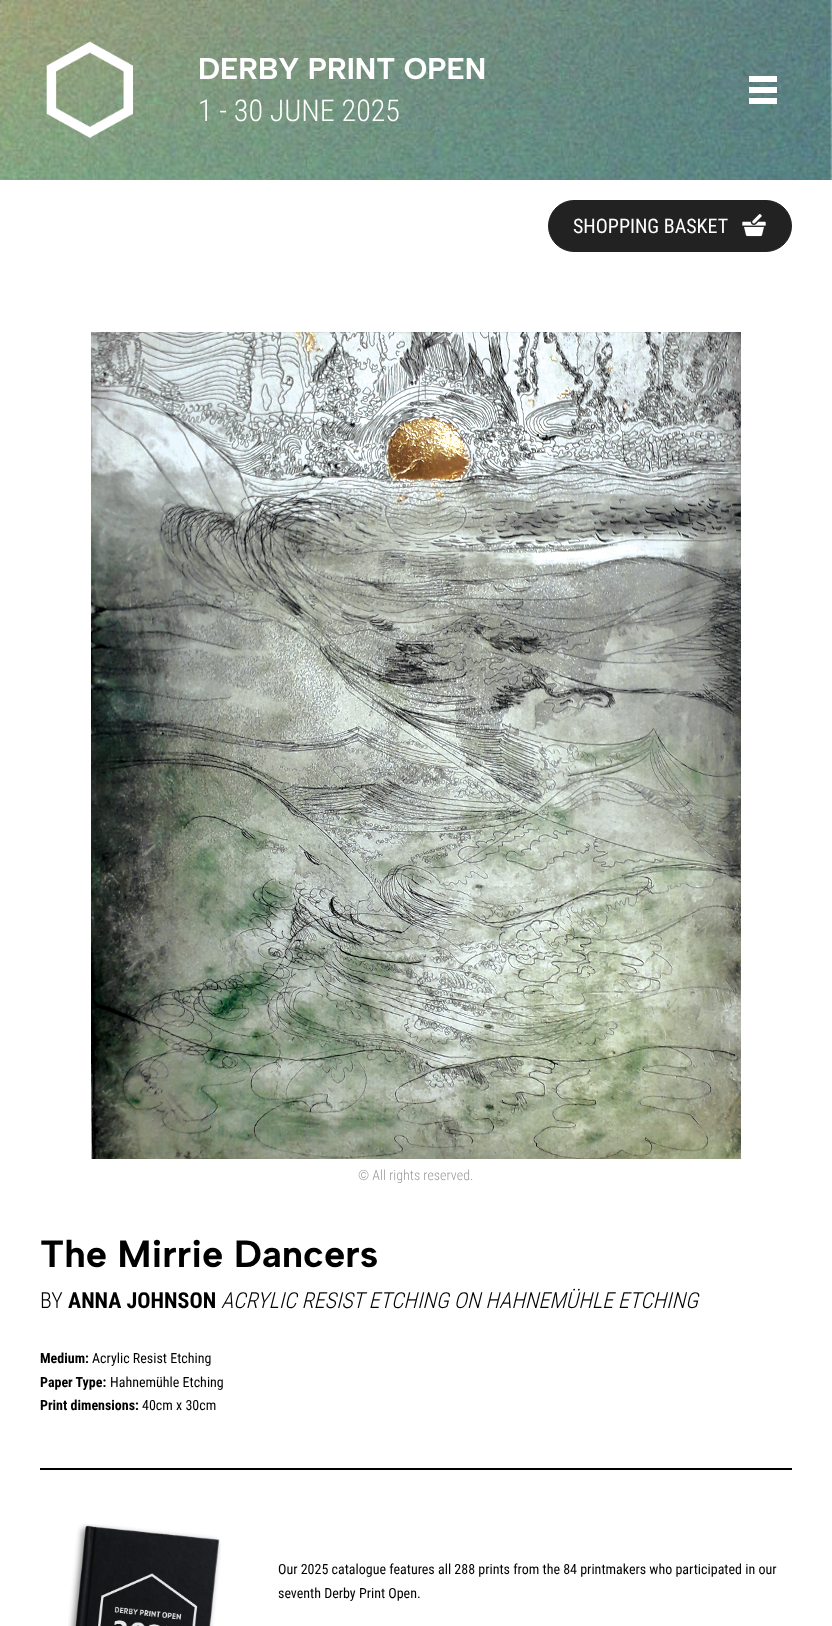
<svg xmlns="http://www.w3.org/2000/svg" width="832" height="1626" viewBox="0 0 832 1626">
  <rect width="100%" height="100%" fill="#ffffff"/>
  <image x="0" y="0" width="832" height="180" href="img1.png"/>
  <image x="46" y="41" width="87" height="97" href="img2.png"/>
  <text x="198" y="79" font-family="Albert Sans" font-size="30" font-weight="bold" fill="#ffffff">DERBY PRINT OPEN</text>
  <text x="198" y="121" font-family="Roboto Condensed" font-size="30" font-weight="300" fill="#ffffff">1 - 30 JUNE 2025</text>
  <rect x="749" y="76" width="28" height="6" fill="#ffffff"/>
  <rect x="749" y="87" width="28" height="6" fill="#ffffff"/>
  <rect x="749" y="98" width="28" height="6" fill="#ffffff"/>
  <rect x="548.5" y="200.5" width="243" height="51" rx="25.5" fill="#222222" stroke="#222222"/>
  <text x="573" y="233" font-family="Roboto Condensed" font-size="20" fill="#ffffff">SHOPPING BASKET</text>
  <image x="742" y="214" width="24" height="23" href="img3.png"/>
  <image x="91" y="332" width="650" height="827" href="img4.png"/>
  <text x="358" y="1180" font-family="Roboto Condensed" font-size="14" font-weight="300" fill="#999999">© All rights reserved.</text>
  <text x="40" y="1267" font-family="Albert Sans" font-size="38" font-weight="bold" fill="#000000">The Mirrie Dancers</text>
  <text x="40" y="1308" font-family="Roboto Condensed" font-size="22" font-weight="300" fill="#000000">BY</text>
  <text x="68" y="1308" font-family="Roboto Condensed" font-size="22" font-weight="bold" fill="#000000">ANNA JOHNSON</text>
  <text x="221" y="1308" font-family="Roboto Condensed" font-size="22" font-weight="300" font-style="italic" fill="#000000">ACRYLIC RESIST ETCHING ON HAHNEMÜHLE ETCHING</text>
  <text x="40" y="1363" font-family="Roboto Condensed" font-size="14" font-weight="bold" fill="#000000">Medium:</text>
  <text x="92" y="1363" font-family="Roboto Condensed" font-size="14" fill="#000000">Acrylic Resist Etching</text>
  <text x="40" y="1387" font-family="Roboto Condensed" font-size="14" font-weight="bold" fill="#000000">Paper Type:</text>
  <text x="110" y="1387" font-family="Roboto Condensed" font-size="14" fill="#000000">Hahnemühle Etching</text>
  <text x="40" y="1410" font-family="Roboto Condensed" font-size="14" font-weight="bold" fill="#000000">Print dimensions:</text>
  <text x="142" y="1410" font-family="Roboto Condensed" font-size="14" fill="#000000">40cm x 30cm</text>
  <rect x="40" y="1468" width="752" height="2" fill="#000000"/>
  <image x="68" y="1524" width="153" height="102" href="img5.png"/>
  <text x="278" y="1574" font-family="Roboto Condensed" font-size="14" fill="#000000">Our 2025 catalogue features all 288 prints from the 84 printmakers who participated in our</text>
  <text x="278" y="1598" font-family="Roboto Condensed" font-size="14" fill="#000000">seventh Derby Print Open.</text>
</svg>
